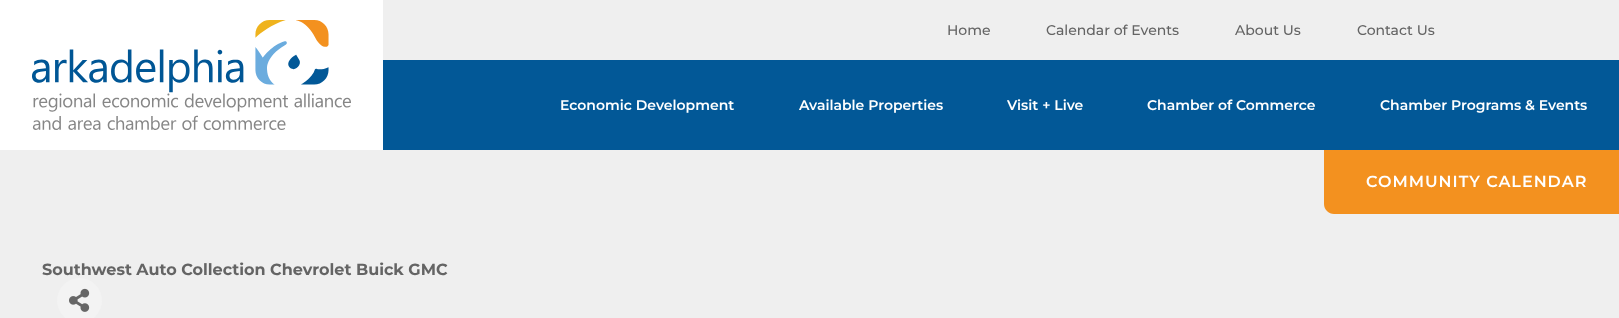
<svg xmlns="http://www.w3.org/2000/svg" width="1619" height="318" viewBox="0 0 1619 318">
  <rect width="100%" height="100%" fill="#efefef"/>
  <text x="947" y="35" font-family="Montserrat" font-size="14" font-weight="500" fill="#646464">Home</text>
  <text x="1046" y="35" font-family="Montserrat" font-size="14" font-weight="500" fill="#646464">Calendar of Events</text>
  <text x="1235" y="35" font-family="Montserrat" font-size="14" font-weight="500" fill="#646464">About Us</text>
  <text x="1357" y="35" font-family="Montserrat" font-size="14" font-weight="500" fill="#646464">Contact Us</text>
  <rect x="383" y="60" width="1236" height="90" fill="#025897"/>
  <rect x="0" y="0" width="383" height="150" fill="#ffffff"/>
  <image x="32" y="20" width="319" height="110" href="img1.png"/>
  <text x="560" y="110" font-family="Montserrat" font-size="14" font-weight="600" fill="#ffffff">Economic Development</text>
  <text x="799" y="110" font-family="Montserrat" font-size="14" font-weight="600" fill="#ffffff">Available Properties</text>
  <text x="1007" y="110" font-family="Montserrat" font-size="14" font-weight="600" fill="#ffffff">Visit + Live</text>
  <text x="1147" y="110" font-family="Montserrat" font-size="14" font-weight="600" fill="#ffffff">Chamber of Commerce</text>
  <text x="1380" y="110" font-family="Montserrat" font-size="14" font-weight="600" fill="#ffffff">Chamber Programs &amp; Events</text>
  <path d="M1324 150H1619V214H1334C1328.5 214 1324 209.5 1324 204Z" fill="#f3911f"/>
  <text x="1366" y="187" font-family="Montserrat" font-size="16" font-weight="600" letter-spacing="1" fill="#ffffff">COMMUNITY CALENDAR</text>
  <text x="42" y="275" font-family="Montserrat" font-size="16" font-weight="bold" fill="#646464">Southwest Auto Collection Chevrolet Buick GMC</text>
  <circle cx="79.5" cy="300.5" r="22.5" fill="#f3f3f3"/>
  <image x="69" y="288" width="21" height="24" href="img2.png"/>
</svg>
